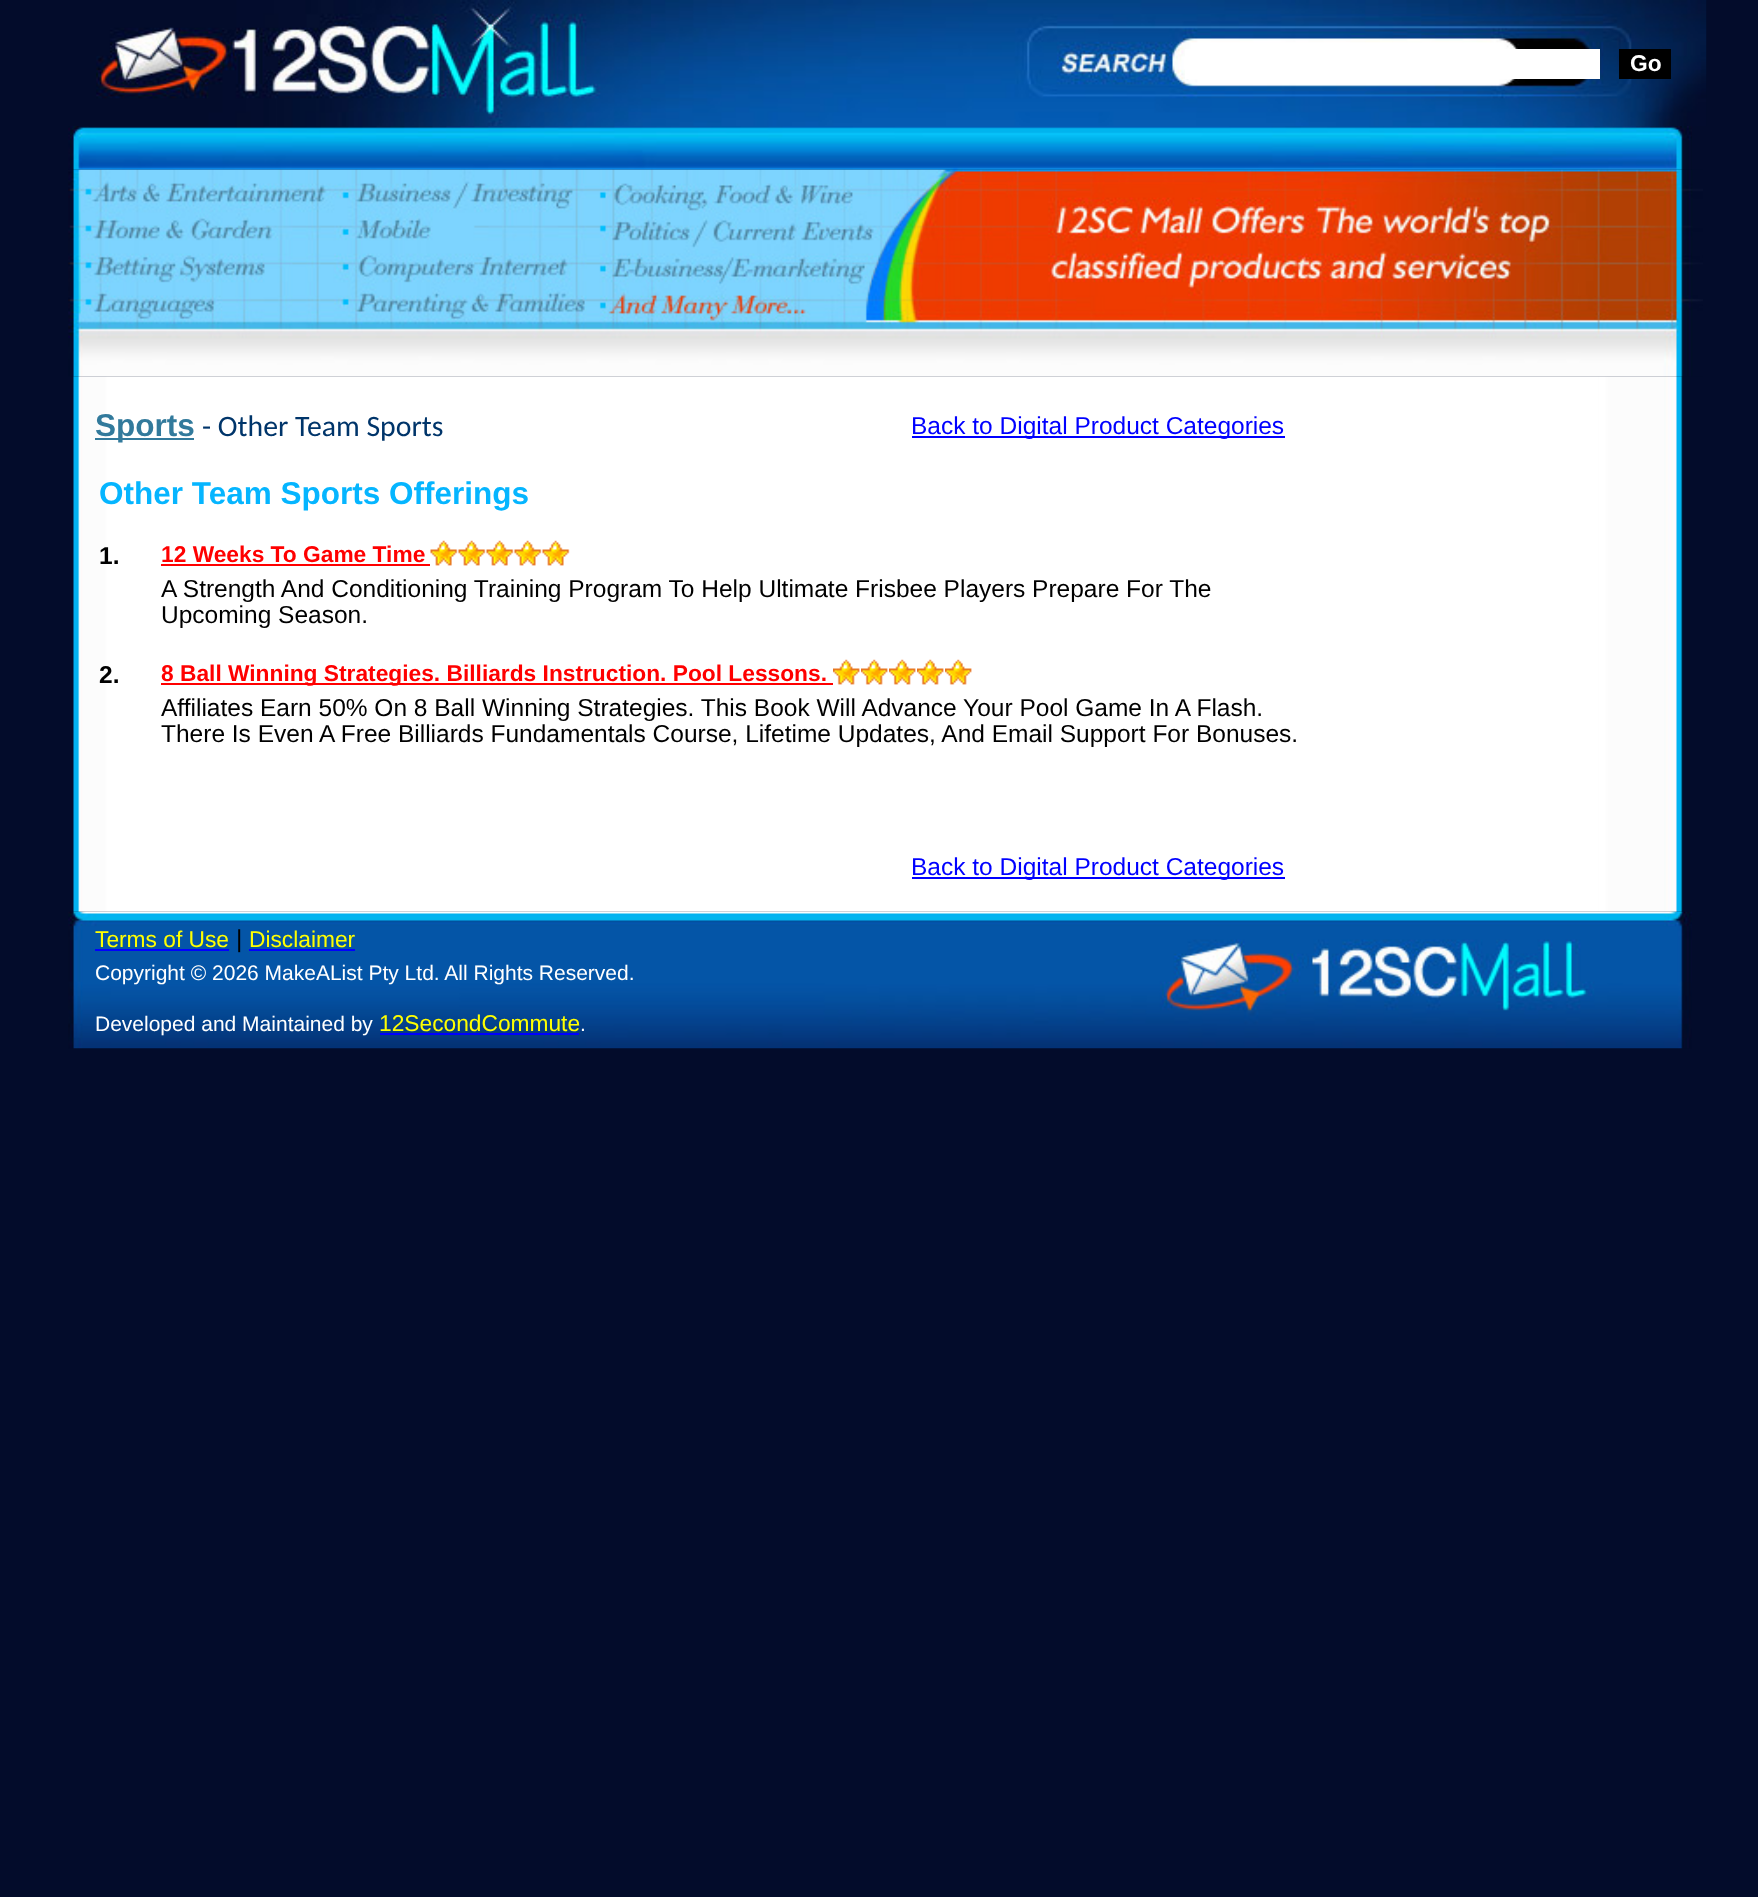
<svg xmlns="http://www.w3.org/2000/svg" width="1758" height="1897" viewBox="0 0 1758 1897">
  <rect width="100%" height="100%" fill="#030c2b"/>
  <image x="96" y="0" width="555" height="126" href="img1.png"/>
  <image x="651" y="0" width="1056" height="126" href="img2.png"/>
  <rect x="1185" y="49" width="415" height="30" fill="#ffffff"/>
  <rect x="1619" y="49" width="52" height="30" fill="#000000"/>
  <text x="1630" y="71" font-family="Liberation Sans" font-size="22.75" font-weight="bold" fill="#ffffff">Go</text>
  <image x="68" y="126" width="1624" height="44" href="img3.png"/>
  <image x="73" y="376" width="1610" height="536" href="img5.png"/>
  <image x="68" y="169" width="1635" height="208" href="img4.png"/>
  <rect x="95" y="438" width="99" height="2" fill="#327a9c"/>
  <text x="95" y="436" font-family="Liberation Sans" font-size="31.5" font-weight="bold" fill="#327a9c">Sports</text>
  <text x="202" y="436" font-family="Carlito" font-size="29.75" fill="#00356a">- Other Team Sports</text>
  <rect x="912" y="436" width="373" height="2" fill="#0000ff"/>
  <text x="911" y="434" font-family="Liberation Sans" font-size="24.5" fill="#0000ff">Back to Digital Product Categories</text>
  <text x="99" y="504" font-family="Liberation Sans" font-size="31.5" font-weight="bold" fill="#05b5ff">Other Team Sports Offerings</text>
  <text x="99" y="564" font-family="Liberation Sans" font-size="24.5" font-weight="bold" fill="#000000">1.</text>
  <text x="161" y="562" font-family="Liberation Sans" font-size="22.75" font-weight="bold" fill="#ff0000">12 Weeks To Game Time</text>
  <rect x="161" y="564" width="269" height="2" fill="#ff0000"/>
  <image x="430" y="540" width="28" height="26" href="img6.png"/>
  <image x="458" y="540" width="28" height="26" href="img6.png"/>
  <image x="486" y="540" width="28" height="26" href="img6.png"/>
  <image x="514" y="540" width="28" height="26" href="img7.png"/>
  <image x="542" y="540" width="28" height="26" href="img8.png"/>
  <text x="161" y="597" font-family="Liberation Sans" font-size="24.5" fill="#000000">A Strength And Conditioning Training Program To Help Ultimate Frisbee Players Prepare For The</text>
  <text x="161" y="623" font-family="Liberation Sans" font-size="24.5" fill="#000000">Upcoming Season.</text>
  <text x="99" y="683" font-family="Liberation Sans" font-size="24.5" font-weight="bold" fill="#000000">2.</text>
  <rect x="161" y="683" width="672" height="2" fill="#ff0000"/>
  <text x="161" y="681" font-family="Liberation Sans" font-size="22.75" font-weight="bold" fill="#ff0000">8 Ball Winning Strategies. Billiards Instruction. Pool Lessons.</text>
  <image x="833" y="659" width="27" height="26" href="img9.png"/>
  <image x="861" y="659" width="27" height="26" href="img10.png"/>
  <image x="889" y="659" width="27" height="26" href="img9.png"/>
  <image x="917" y="659" width="27" height="26" href="img9.png"/>
  <image x="945" y="659" width="27" height="26" href="img9.png"/>
  <text x="161" y="716" font-family="Liberation Sans" font-size="24.5" fill="#000000">Affiliates Earn 50% On 8 Ball Winning Strategies. This Book Will Advance Your Pool Game In A Flash.</text>
  <text x="161" y="742" font-family="Liberation Sans" font-size="24.5" fill="#000000">There Is Even A Free Billiards Fundamentals Course, Lifetime Updates, And Email Support For Bonuses.</text>
  <rect x="912" y="877" width="373" height="2" fill="#0000ff"/>
  <text x="911" y="875" font-family="Liberation Sans" font-size="24.5" fill="#0000ff">Back to Digital Product Categories</text>
  <image x="68" y="911" width="1624" height="138" href="img11.png"/>
  <text x="95" y="947" font-family="Liberation Sans" font-size="22.75" fill="#ffff00">Terms of Use</text>
  <rect x="95" y="949" width="134" height="2" fill="#0000ff"/>
  <text x="236" y="947" font-family="Liberation Sans" font-size="24.5" fill="#000000">|</text>
  <text x="249" y="947" font-family="Liberation Sans" font-size="22.75" fill="#ffff00">Disclaimer</text>
  <rect x="249" y="949" width="106" height="2" fill="#0000ff"/>
  <text x="95" y="980" font-family="Liberation Sans" font-size="21" fill="#ffffff">Copyright © 2026 MakeAList Pty Ltd. All Rights Reserved.</text>
  <text x="95" y="1031" font-family="Liberation Sans" font-size="21" fill="#ffffff">Developed and Maintained by</text>
  <text x="379" y="1031" font-family="Liberation Sans" font-size="22.75" fill="#ffff00">12SecondCommute</text>
  <rect x="380" y="1033" width="199" height="2" fill="#0000ff"/>
  <text x="580" y="1031" font-family="Liberation Sans" font-size="21" fill="#ffffff">.</text>
</svg>
